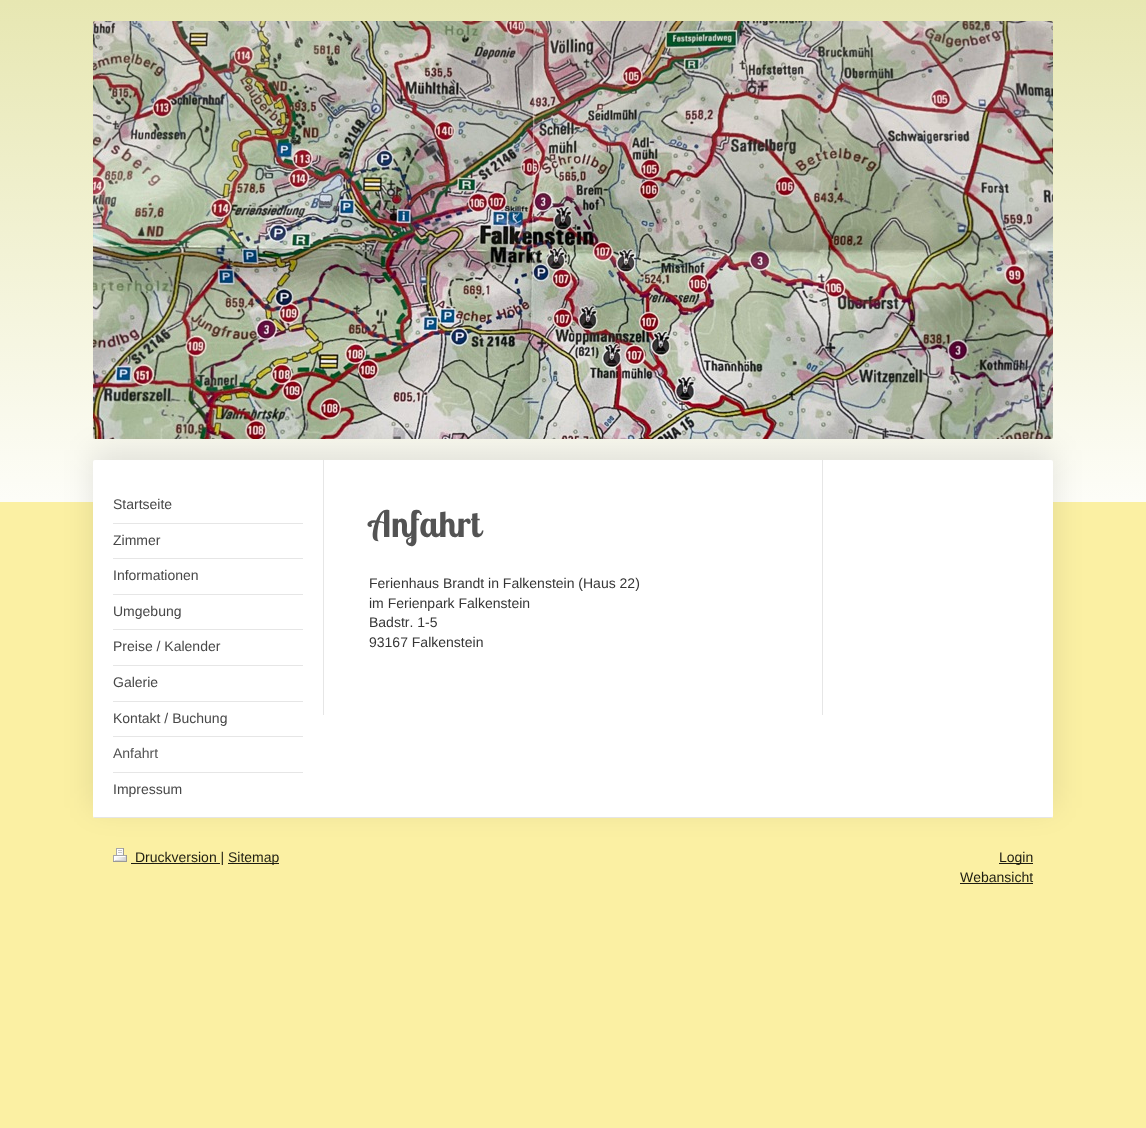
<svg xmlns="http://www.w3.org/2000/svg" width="1146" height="1128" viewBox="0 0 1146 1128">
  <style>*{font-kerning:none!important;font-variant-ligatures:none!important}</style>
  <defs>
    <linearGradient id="g1" gradientUnits="userSpaceOnUse" x1="0" y1="502" x2="0" y2="0"><stop offset="0" stop-color="#fdfdf8"/><stop offset="1" stop-color="#e7e7b2"/></linearGradient>
    <filter id="blur1" x="-50%" y="-200%" width="200%" height="500%"><feGaussianBlur stdDeviation="15"/></filter>
  </defs>
  <rect width="100%" height="100%" fill="#fbf0a3"/>
  <rect x="0" y="0" width="1146" height="502" fill="url(#g1)"/>
  <image x="93" y="21" width="960" height="418" href="img1.png"/>
  <rect x="93" y="450" width="960" height="358" rx="2" fill="#000000" fill-opacity="0.1" filter="url(#blur1)"/>
  <rect x="93" y="460" width="960" height="358" rx="2" fill="#ffffff"/>
  <rect x="94" y="817" width="958" height="1" fill="#e6e6e6"/>
  <rect x="113" y="523" width="190" height="1" fill="#e6e6e6"/>
  <text x="113" y="509" font-family="Liberation Sans" font-size="14" fill="#474747">Startseite</text>
  <rect x="113" y="558" width="190" height="1" fill="#e6e6e6"/>
  <text x="113" y="545" font-family="Liberation Sans" font-size="14" fill="#474747">Zimmer</text>
  <rect x="113" y="594" width="190" height="1" fill="#e6e6e6"/>
  <text x="113" y="580" font-family="Liberation Sans" font-size="14" fill="#474747">Informationen</text>
  <rect x="113" y="629" width="190" height="1" fill="#e6e6e6"/>
  <text x="113" y="616" font-family="Liberation Sans" font-size="14" fill="#474747">Umgebung</text>
  <rect x="113" y="665" width="190" height="1" fill="#e6e6e6"/>
  <text x="113" y="651" font-family="Liberation Sans" font-size="14" fill="#474747">Preise / Kalender</text>
  <rect x="113" y="701" width="190" height="1" fill="#e6e6e6"/>
  <text x="113" y="687" font-family="Liberation Sans" font-size="14" fill="#474747">Galerie</text>
  <rect x="113" y="736" width="190" height="1" fill="#e6e6e6"/>
  <text x="113" y="723" font-family="Liberation Sans" font-size="14" fill="#474747">Kontakt / Buchung</text>
  <rect x="113" y="772" width="190" height="1" fill="#e6e6e6"/>
  <text x="113" y="758" font-family="Liberation Sans" font-size="14" fill="#535353">Anfahrt</text>
  <text x="113" y="794" font-family="Liberation Sans" font-size="14" fill="#474747">Impressum</text>
  <rect x="822" y="460" width="1" height="255" fill="#e6e6e6"/>
  <rect x="323" y="460" width="1" height="255" fill="#e6e6e6"/>
  <text x="369" y="537" font-family="Lobster Two" font-size="36.5" font-weight="bold" fill="#535353">Anfahrt</text>
  <text x="369" y="588" font-family="Liberation Sans" font-size="14" fill="#353535">Ferienhaus Brandt in Falkenstein (Haus 22)</text>
  <text x="369" y="608" font-family="Liberation Sans" font-size="14" fill="#353535">im Ferienpark Falkenstein</text>
  <text x="369" y="627" font-family="Liberation Sans" font-size="14" fill="#353535">Badstr. 1-5</text>
  <text x="369" y="647" font-family="Liberation Sans" font-size="14" fill="#353535">93167 Falkenstein</text>
  <image x="113" y="848" width="14" height="14" href="img2.png"/>
  <rect x="131" y="863" width="89" height="1" fill="#1e1d11"/>
  <text x="135" y="862" font-family="Liberation Sans" font-size="14" fill="#1e1d11">Druckversion |</text>
  <rect x="228" y="863" width="51" height="1" fill="#1e1d11"/>
  <text x="228" y="862" font-family="Liberation Sans" font-size="14" fill="#1e1d11">Sitemap</text>
  <rect x="999" y="863" width="34" height="1" fill="#1e1d11"/>
  <text x="999" y="862" font-family="Liberation Sans" font-size="14" fill="#1e1d11">Login</text>
  <text x="960" y="882" font-family="Liberation Sans" font-size="14" fill="#1e1d11">Webansicht</text>
  <rect x="960" y="883" width="73" height="1" fill="#1e1d11"/>
</svg>
